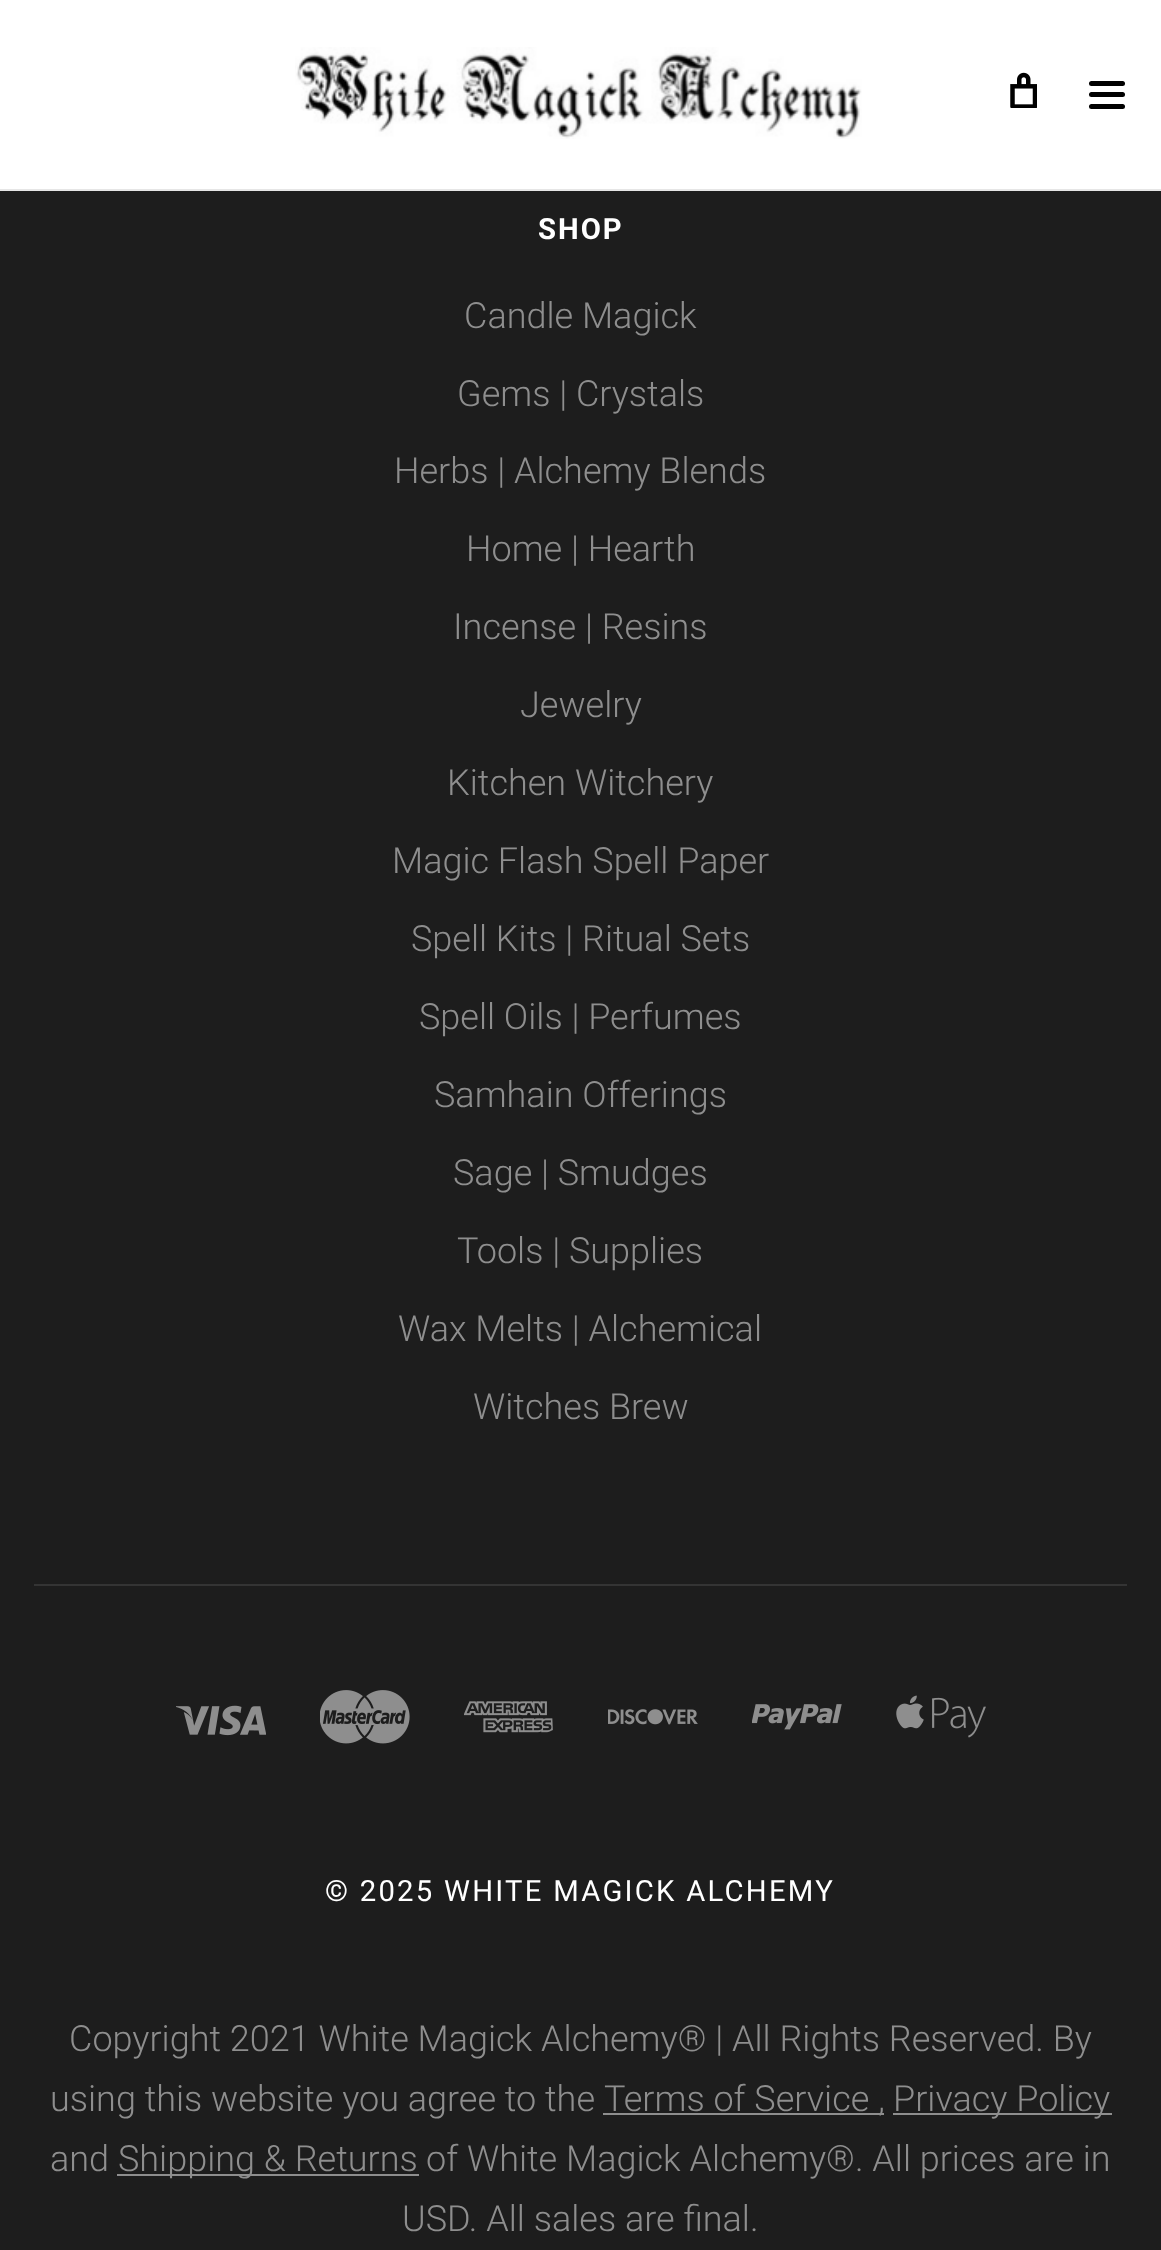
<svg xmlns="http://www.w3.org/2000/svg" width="1161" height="2250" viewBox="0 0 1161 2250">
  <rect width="100%" height="100%" fill="#1d1d1d"/>
  <rect x="0" y="0" width="1161" height="189" fill="#ffffff"/>
  <rect x="0" y="189" width="1161" height="2" fill="#e6e6e6"/>
  <image x="295" y="47" width="567" height="92" href="img1.png"/>
  <image x="1010" y="72" width="27" height="36" href="img2.png"/>
  <rect x="1089" y="92" width="36" height="5" rx="2.5" fill="#000000"/>
  <rect x="1089" y="81" width="36" height="5" rx="2.5" fill="#000000"/>
  <rect x="1089" y="104" width="36" height="5" rx="2.5" fill="#000000"/>
  <text x="538" y="239" font-family="Roboto" font-size="29.25" font-weight="bold" letter-spacing="2" fill="#ffffff">SHOP</text>
  <text x="464" y="328" font-family="Roboto" font-size="36" font-weight="300" fill="#8e8e8e">Candle Magick</text>
  <text x="457" y="406" font-family="Roboto" font-size="36" font-weight="300" fill="#8e8e8e">Gems | Crystals</text>
  <text x="394" y="483" font-family="Roboto" font-size="36" font-weight="300" fill="#8e8e8e">Herbs | Alchemy Blends</text>
  <text x="466" y="561" font-family="Roboto" font-size="36" font-weight="300" fill="#8e8e8e">Home | Hearth</text>
  <text x="453" y="639" font-family="Roboto" font-size="36" font-weight="300" fill="#8e8e8e">Incense | Resins</text>
  <text x="520" y="717" font-family="Roboto" font-size="36" font-weight="300" fill="#8e8e8e">Jewelry</text>
  <text x="447" y="795" font-family="Roboto" font-size="36" font-weight="300" fill="#8e8e8e">Kitchen Witchery</text>
  <text x="392" y="873" font-family="Roboto" font-size="36" font-weight="300" fill="#8e8e8e">Magic Flash Spell Paper</text>
  <text x="411" y="951" font-family="Roboto" font-size="36" font-weight="300" fill="#8e8e8e">Spell Kits | Ritual Sets</text>
  <text x="419" y="1029" font-family="Roboto" font-size="36" font-weight="300" fill="#8e8e8e">Spell Oils | Perfumes</text>
  <text x="434" y="1107" font-family="Roboto" font-size="36" font-weight="300" fill="#8e8e8e">Samhain Offerings</text>
  <text x="453" y="1185" font-family="Roboto" font-size="36" font-weight="300" fill="#8e8e8e">Sage | Smudges</text>
  <text x="457" y="1263" font-family="Roboto" font-size="36" font-weight="300" fill="#8e8e8e">Tools | Supplies</text>
  <text x="398" y="1341" font-family="Roboto" font-size="36" font-weight="300" fill="#8e8e8e">Wax Melts | Alchemical</text>
  <text x="473" y="1419" font-family="Roboto" font-size="36" font-weight="300" fill="#8e8e8e">Witches Brew</text>
  <rect x="34" y="1584" width="1093" height="2" fill="#343434"/>
  <image x="176" y="1705" width="90" height="31" href="img3.png"/>
  <image x="320" y="1690" width="90" height="54" href="img4.png"/>
  <image x="464" y="1701" width="89" height="32" href="img5.png"/>
  <image x="608" y="1709" width="90" height="16" href="img6.png"/>
  <image x="752" y="1704" width="90" height="26" href="img7.png"/>
  <image x="896" y="1695" width="90" height="43" href="img8.png"/>
  <text x="325" y="1901" font-family="Roboto" font-size="29.25" letter-spacing="2.25" fill="#ffffff">© 2025 WHITE MAGICK ALCHEMY</text>
  <text x="69" y="2051" font-family="Roboto" font-size="36" font-weight="300" fill="#8e8e8e">Copyright 2021 White Magick Alchemy® | All Rights Reserved. By</text>
  <text x="50" y="2111" font-family="Roboto" font-size="36" font-weight="300" fill="#8e8e8e">using this website you agree to the</text>
  <rect x="603" y="2113" width="281" height="2" fill="#8e8e8e"/>
  <text x="604" y="2111" font-family="Roboto" font-size="36" font-weight="300" fill="#8e8e8e">Terms of Service ,</text>
  <rect x="893" y="2113" width="219" height="2" fill="#8e8e8e"/>
  <text x="893" y="2111" font-family="Roboto" font-size="36" font-weight="300" fill="#8e8e8e">Privacy Policy</text>
  <text x="50" y="2171" font-family="Roboto" font-size="36" font-weight="300" fill="#8e8e8e">and</text>
  <rect x="117" y="2174" width="302" height="2" fill="#8e8e8e"/>
  <text x="118" y="2171" font-family="Roboto" font-size="36" font-weight="300" fill="#8e8e8e">Shipping &amp; Returns</text>
  <text x="426" y="2171" font-family="Roboto" font-size="36" font-weight="300" fill="#8e8e8e">of White Magick Alchemy®. All prices are in</text>
  <text x="402" y="2231" font-family="Roboto" font-size="36" font-weight="300" fill="#8e8e8e">USD. All sales are final.</text>
</svg>
